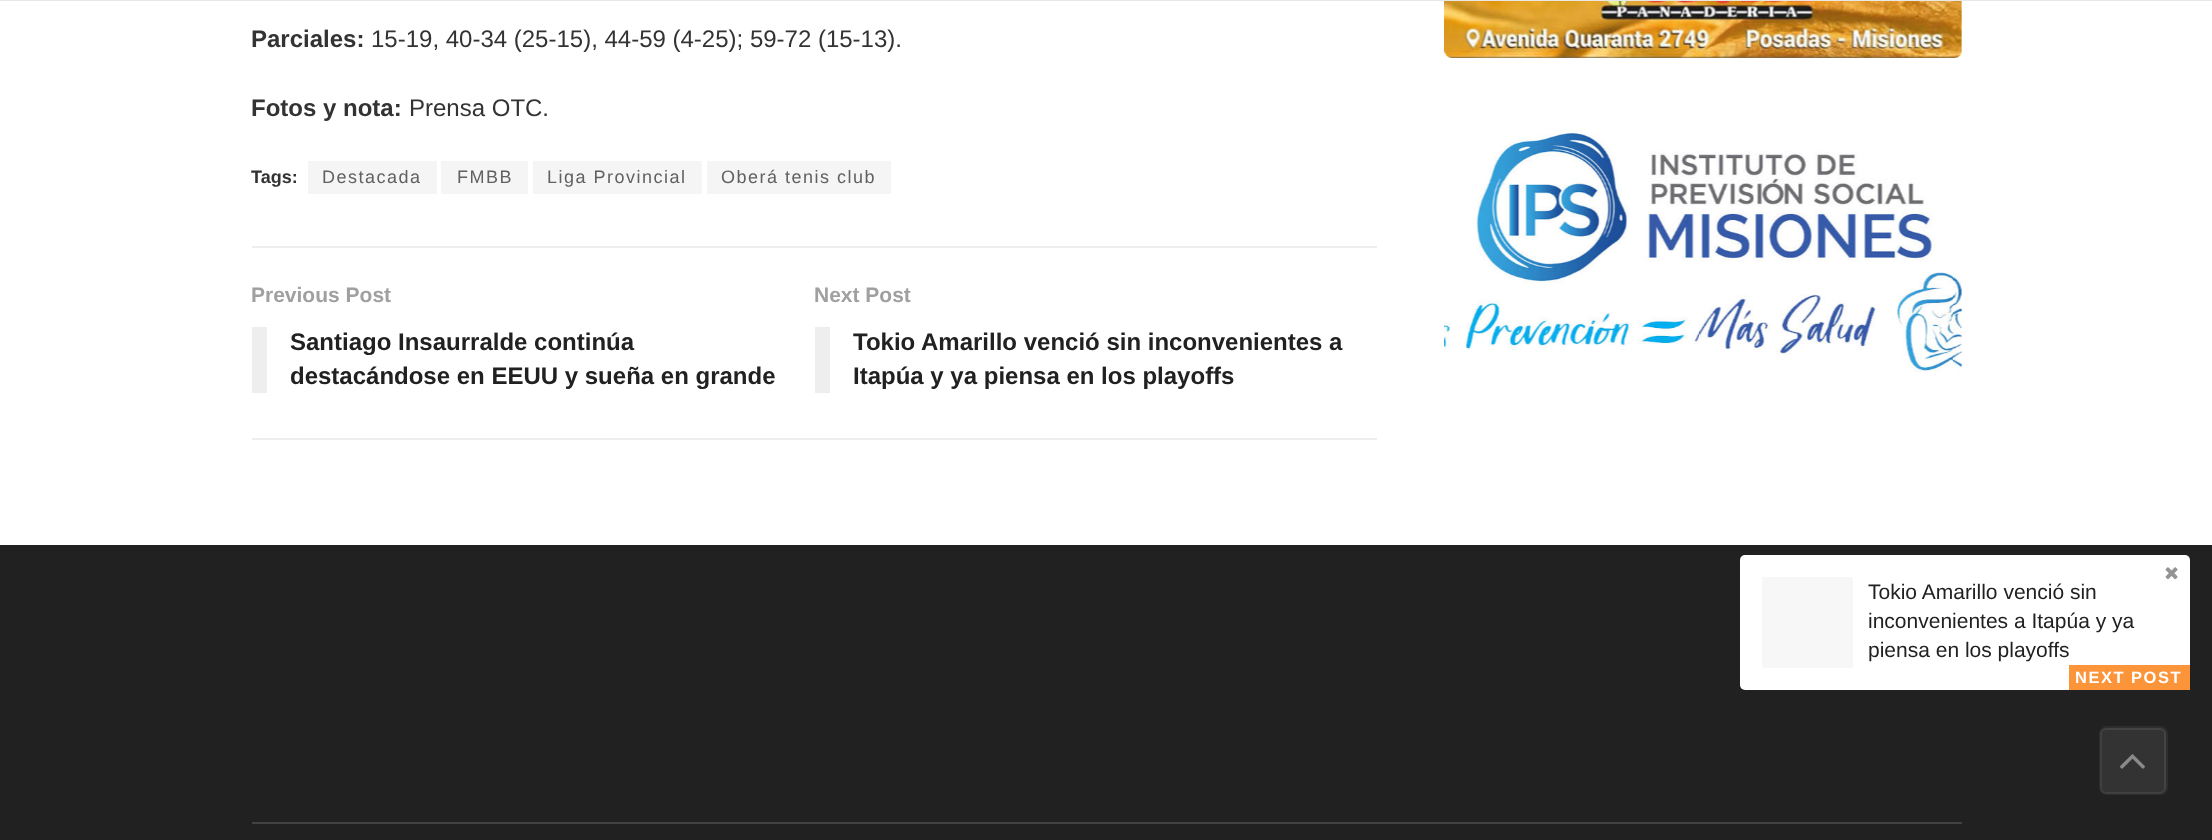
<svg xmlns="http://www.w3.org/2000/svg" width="2212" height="840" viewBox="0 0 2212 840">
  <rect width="100%" height="100%" fill="#ffffff"/>
  <rect x="0" y="0" width="2212" height="1" fill="#e8e8e8"/>
  <image x="1444" y="1" width="518" height="57" href="img1.png"/>
  <image x="1444" y="129" width="518" height="243" href="img2.png"/>
  <text x="251" y="47" font-family="Liberation Sans" font-size="24" font-weight="bold" fill="#333333">Parciales:</text>
  <text x="371" y="47" font-family="Liberation Sans" font-size="24" fill="#333333">15-19, 40-34 (25-15), 44-59 (4-25); 59-72 (15-13).</text>
  <text x="251" y="116" font-family="Liberation Sans" font-size="24" font-weight="bold" fill="#333333">Fotos y nota:</text>
  <text x="409" y="116" font-family="Liberation Sans" font-size="24" fill="#333333">Prensa OTC.</text>
  <text x="251" y="183" font-family="Liberation Sans" font-size="18" font-weight="bold" fill="#333333">Tags:</text>
  <rect x="308" y="161" width="129" height="33" fill="#f5f5f5"/>
  <text x="322" y="183" font-family="Liberation Sans" font-size="18" letter-spacing="1.5" fill="#616161">Destacada</text>
  <rect x="441" y="161" width="87" height="33" fill="#f5f5f5"/>
  <text x="457" y="183" font-family="Liberation Sans" font-size="18" letter-spacing="1.5" fill="#616161">FMBB</text>
  <rect x="533" y="161" width="169" height="33" fill="#f5f5f5"/>
  <text x="547" y="183" font-family="Liberation Sans" font-size="18" letter-spacing="1.5" fill="#616161">Liga Provincial</text>
  <rect x="707" y="161" width="184" height="33" fill="#f5f5f5"/>
  <text x="721" y="183" font-family="Liberation Sans" font-size="18" letter-spacing="1.5" fill="#616161">Oberá tenis club</text>
  <rect x="252" y="246" width="1125" height="2" fill="#eeeeee"/>
  <rect x="252" y="438" width="1125" height="2" fill="#eeeeee"/>
  <text x="251" y="302" font-family="Liberation Sans" font-size="21" font-weight="bold" fill="#a0a0a0">Previous Post</text>
  <rect x="252" y="327" width="15" height="66" fill="#eeeeee"/>
  <text x="290" y="350" font-family="Liberation Sans" font-size="24" font-weight="bold" fill="#212121">Santiago Insaurralde continúa</text>
  <text x="290" y="384" font-family="Liberation Sans" font-size="24" font-weight="bold" fill="#212121">destacándose en EEUU y sueña en grande</text>
  <text x="814" y="302" font-family="Liberation Sans" font-size="21" font-weight="bold" fill="#a0a0a0">Next Post</text>
  <rect x="815" y="327" width="15" height="66" fill="#eeeeee"/>
  <text x="853" y="350" font-family="Liberation Sans" font-size="24" font-weight="bold" fill="#212121">Tokio Amarillo venció sin inconvenientes a</text>
  <text x="853" y="384" font-family="Liberation Sans" font-size="24" font-weight="bold" fill="#212121">Itapúa y ya piensa en los playoffs</text>
  <rect x="0" y="545" width="2212" height="295" fill="#212121"/>
  <rect x="1740" y="555" width="450" height="135" rx="5" fill="#ffffff"/>
  <image x="2165" y="567" width="13" height="13" href="img3.png"/>
  <rect x="1763" y="578" width="90" height="90" fill="#f7f7f7"/>
  <rect x="1762" y="577" width="90" height="90" fill="#f7f7f7"/>
  <text x="1868" y="599" font-family="Liberation Sans" font-size="21" fill="#212121">Tokio Amarillo venció sin</text>
  <text x="1868" y="628" font-family="Liberation Sans" font-size="21" fill="#212121">inconvenientes a Itapúa y ya</text>
  <text x="1868" y="657" font-family="Liberation Sans" font-size="21" fill="#212121">piensa en los playoffs</text>
  <rect x="2069" y="665" width="121" height="25" fill="#fc943a"/>
  <text x="2075" y="683" font-family="Liberation Sans" font-size="16.5" font-weight="bold" letter-spacing="1.5" fill="#ffffff">NEXT POST</text>
  <rect x="252" y="822" width="1710" height="2" fill="#424242"/>
  <rect x="2099" y="726" width="69" height="69" rx="8" fill="#333333"/>
  <rect x="2101" y="729" width="64" height="64" rx="5" fill="none" stroke="#434343" stroke-width="2"/>
  <rect x="2100" y="727" width="67" height="67" rx="7" fill="none" stroke="#070707" stroke-opacity="0.11" stroke-width="2"/>
  <image x="2120" y="754" width="25" height="15" href="img4.png"/>
</svg>
